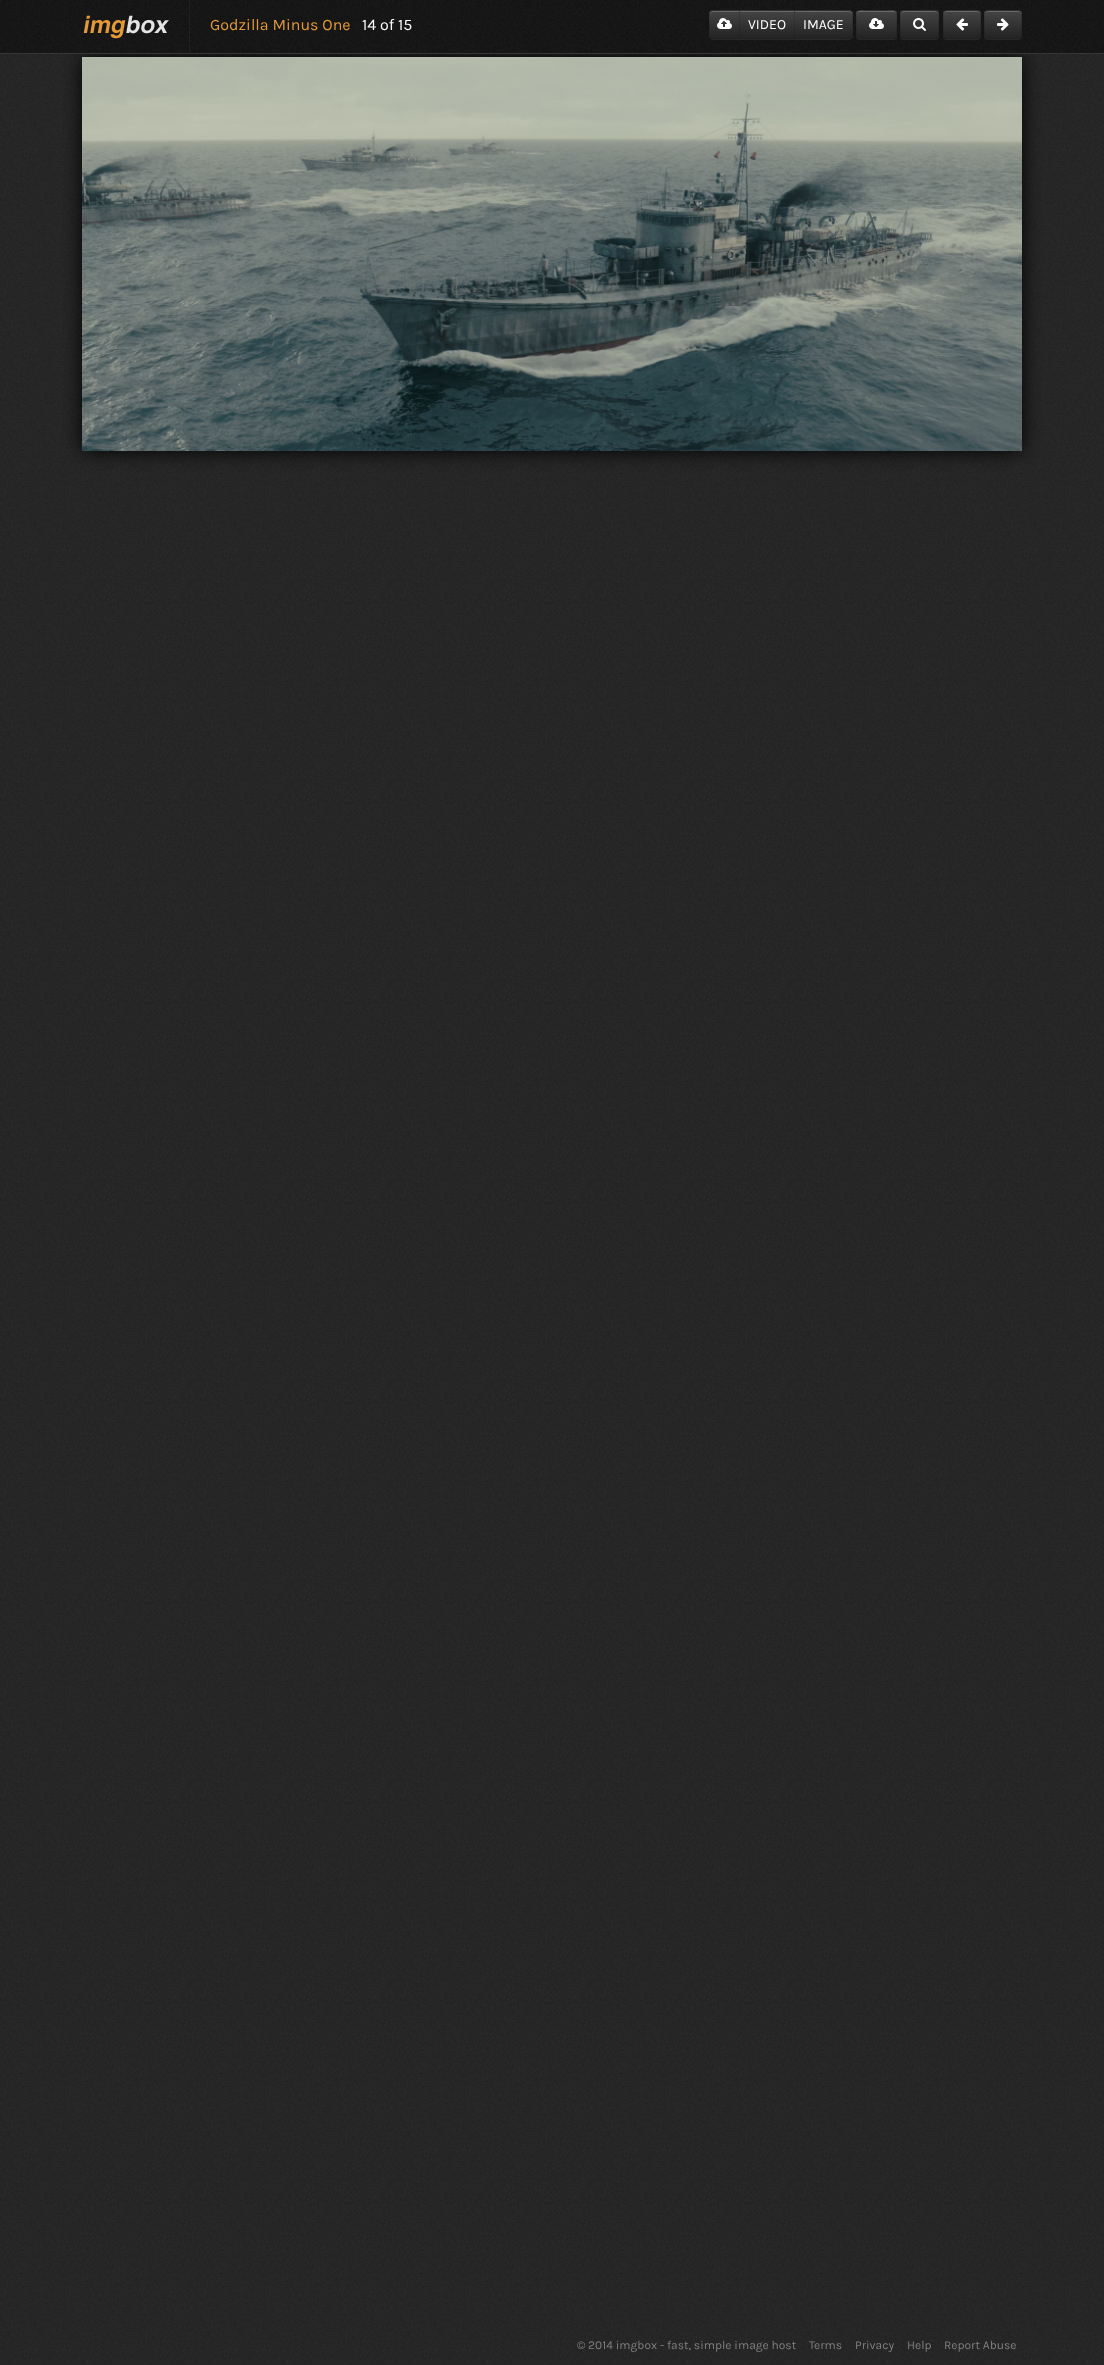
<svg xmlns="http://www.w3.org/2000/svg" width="1104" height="2365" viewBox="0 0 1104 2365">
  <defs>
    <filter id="blur1" x="-50%" y="-200%" width="200%" height="500%"><feGaussianBlur stdDeviation="10"/></filter>
    <clipPath id="clip1"><path d="M713 10H740V40H713C711 40 709 38 709 36V14C709 12 711 10 713 10Z"/></clipPath>
    <linearGradient id="g1" gradientUnits="userSpaceOnUse" x1="725" y1="11" x2="725" y2="39"><stop offset="0" stop-color="#444444"/><stop offset="1" stop-color="#222222"/></linearGradient>
    <linearGradient id="g2" gradientUnits="userSpaceOnUse" x1="767" y1="11" x2="767" y2="39"><stop offset="0" stop-color="#444444"/><stop offset="1" stop-color="#222222"/></linearGradient>
    <clipPath id="clip2"><path d="M794 10H849C851 10 853 12 853 14V36C853 38 851 40 849 40H794Z"/></clipPath>
    <linearGradient id="g3" gradientUnits="userSpaceOnUse" x1="824" y1="11" x2="824" y2="39"><stop offset="0" stop-color="#444444"/><stop offset="1" stop-color="#222222"/></linearGradient>
    <clipPath id="clip3"><rect x="856" y="10" width="41" height="30" rx="4"/></clipPath>
    <linearGradient id="g4" gradientUnits="userSpaceOnUse" x1="877" y1="11" x2="877" y2="39"><stop offset="0" stop-color="#444444"/><stop offset="1" stop-color="#222222"/></linearGradient>
    <clipPath id="clip4"><rect x="900" y="10" width="39" height="30" rx="4"/></clipPath>
    <linearGradient id="g5" gradientUnits="userSpaceOnUse" x1="920" y1="11" x2="920" y2="39"><stop offset="0" stop-color="#444444"/><stop offset="1" stop-color="#222222"/></linearGradient>
    <clipPath id="clip5"><rect x="943" y="10" width="38" height="30" rx="4"/></clipPath>
    <linearGradient id="g6" gradientUnits="userSpaceOnUse" x1="962" y1="11" x2="962" y2="39"><stop offset="0" stop-color="#444444"/><stop offset="1" stop-color="#222222"/></linearGradient>
    <clipPath id="clip6"><rect x="984" y="10" width="38" height="30" rx="4"/></clipPath>
    <linearGradient id="g7" gradientUnits="userSpaceOnUse" x1="1003" y1="11" x2="1003" y2="39"><stop offset="0" stop-color="#444444"/><stop offset="1" stop-color="#222222"/></linearGradient>
  </defs>
  <rect width="100%" height="100%" fill="#262626"/>
  <image x="0" y="54" width="1104" height="2310" href="img1.png"/>
  <rect x="82" y="57" width="940" height="394" fill="#111111" filter="url(#blur1)"/>
  <image x="0" y="0" width="1104" height="53" href="img2.png"/>
  <rect x="0" y="53" width="1104" height="1" fill="#373737"/>
  <image x="83" y="15" width="86" height="24" href="img3.png"/>
  <rect x="189" y="0" width="1" height="53" fill="#202020"/>
  <text x="210" y="30" font-family="Karla" font-size="16" fill="#e39938">Godzilla Minus One</text>
  <text x="362" y="30" font-family="Karla" font-size="16" fill="#fdfeff">14 of 15</text>
  <path d="M713 10H740V40H713C711 40 709 38 709 36V14C709 12 711 10 713 10Z" fill="#363636"/>
  <g clip-path="url(#clip1)">
    <rect x="709" y="11" width="30" height="28" fill="url(#g1)"/>
  </g>
  <path d="M713 12H739V11H713C711.5 11 710 12.5 710 14V15C710 13 711 12 713 12Z" fill="#696969"/>
  <path d="M713 10C712 10 711 10.5 710 11L711 12C711.5 11.5 712 11 713 11H739L740 10Z" fill="#000000" fill-opacity="0.1"/>
  <path d="M740 40L739 39H713C712 39 711.5 38.5 711 38L710 39C711 39.5 712 40 713 40Z" fill="#000000" fill-opacity="0.25"/>
  <path d="M709 14V36C709 37 709.5 38 710 39L711 38C710.5 37.5 710 37 710 36V14C710 13 710.5 12.5 711 12L710 11C709.5 12 709 13 709 14Z" fill="#000000" fill-opacity="0.1"/>
  <image x="717" y="18" width="15" height="11" href="img4.png"/>
  <rect x="739" y="10" width="55" height="30" fill="#363636"/>
  <rect x="739" y="11" width="55" height="28" fill="url(#g2)"/>
  <rect x="740" y="11" width="54" height="1" fill="#696969"/>
  <path d="M739 10H795L794 11H740Z" fill="#313131"/>
  <path d="M795 40H739L740 39H794Z" fill="#000000" fill-opacity="0.25"/>
  <path d="M739 40V10L740 11V39Z" fill="#000000" fill-opacity="0.1"/>
  <text x="748" y="29" font-family="Karla" font-size="14" fill="#fdfeff">VIDEO</text>
  <path d="M794 10H849C851 10 853 12 853 14V36C853 38 851 40 849 40H794Z" fill="#363636"/>
  <g clip-path="url(#clip2)">
    <rect x="794" y="11" width="59" height="28" fill="url(#g3)"/>
  </g>
  <path d="M795 12H849C851 12 852 13 852 15V14C852 12 851 11 849 11H795Z" fill="#696969"/>
  <path d="M794 10L795 11C801 11 849 10 851 12L852 11L849 10Z" fill="#000000" fill-opacity="0.1"/>
  <path d="M853 36V14C853 13 852.5 12 852 11L851 12C852 12 852 13 852 14V36C852 37 852 38 851 38L852 39C852.5 38 853 37 853 36Z" fill="#000000" fill-opacity="0.1"/>
  <path d="M849 40L852 39L851 38C849 40 801 39 795 39L794 40Z" fill="#000000" fill-opacity="0.25"/>
  <path d="M794 10V40L795 39V11Z" fill="#000000" fill-opacity="0.1"/>
  <text x="803" y="29" font-family="Karla" font-size="14" fill="#fdfeff">IMAGE</text>
  <rect x="856" y="10" width="41" height="30" rx="4" fill="#363636"/>
  <g clip-path="url(#clip3)">
    <rect x="856" y="11" width="41" height="28" fill="url(#g4)"/>
  </g>
  <path d="M860 12H893C895 12 896 13 896 15C896 9.5 892 11 887.5 11H865.5C861 11 857 9.5 857 15C857 13 858 12 860 12Z" fill="#696969"/>
  <path d="M895.5 38.5C895 39 894 39.5 893 39.5H860C859 39.5 858 39 857.5 38.5" fill="none" stroke="#000000" stroke-opacity="0.25"/>
  <path d="M857.5 38.5C855.5 36.5 856.5 28 856.5 25C856.5 6 855 10.5 876.5 10.5C898 10.5 896.5 6 896.5 25C896.5 28 897.5 36.5 895.5 38.5" fill="none" stroke="#000000" stroke-opacity="0.1"/>
  <image x="869" y="18" width="15" height="11" href="img5.png"/>
  <rect x="900" y="10" width="39" height="30" rx="4" fill="#363636"/>
  <g clip-path="url(#clip4)">
    <rect x="900" y="11" width="39" height="28" fill="url(#g5)"/>
  </g>
  <path d="M904 12H935C937 12 938 13 938 15C938 10 934 11 930 11H909C905 11 901 10 901 15C901 13 902 12 904 12Z" fill="#696969"/>
  <path d="M937.5 38.5C937 39 936 39.5 935 39.5H904C903 39.5 902 39 901.5 38.5" fill="none" stroke="#000000" stroke-opacity="0.25"/>
  <path d="M901.5 38.5C901 38 900.5 37 900.5 36V14C900.5 13 901 12 901.5 11.5C902 11 903 10.5 904 10.5H935C936 10.5 937 11 937.5 11.5C938 12 938.5 13 938.5 14V36C938.5 37 938 38 937.5 38.5" fill="none" stroke="#000000" stroke-opacity="0.1"/>
  <image x="913" y="18" width="13" height="13" href="img6.png"/>
  <rect x="943" y="10" width="38" height="30" rx="4" fill="#363636"/>
  <g clip-path="url(#clip5)">
    <rect x="943" y="11" width="38" height="28" fill="url(#g6)"/>
  </g>
  <path d="M947 12H977C979 12 980 13 980 15C980 10 976 11 972 11H952C948 11 944 10 944 15C944 13 945 12 947 12Z" fill="#696969"/>
  <path d="M979.5 38.5C979 39 978 39.5 977 39.5H947C946 39.5 945 39 944.5 38.5" fill="none" stroke="#000000" stroke-opacity="0.25"/>
  <path d="M944.5 38.5C944 38 943.5 37 943.5 36V14C943.5 13 944 12 944.5 11.5C945 11 946 10.5 947 10.5H977C978 10.5 979 11 979.5 11.5C980 12 980.5 13 980.5 14V36C980.5 37 980 38 979.5 38.5" fill="none" stroke="#000000" stroke-opacity="0.1"/>
  <image x="956" y="18" width="12" height="13" href="img7.png"/>
  <rect x="984" y="10" width="38" height="30" rx="4" fill="#363636"/>
  <g clip-path="url(#clip6)">
    <rect x="984" y="11" width="38" height="28" fill="url(#g7)"/>
  </g>
  <path d="M988 12H1018C1020 12 1021 13 1021 15C1021 10 1017 11 1013 11H993C989 11 985 10 985 15C985 13 986 12 988 12Z" fill="#696969"/>
  <path d="M1020.5 38.5C1020 39 1019 39.5 1018 39.5H988C987 39.5 986 39 985.5 38.5" fill="none" stroke="#000000" stroke-opacity="0.25"/>
  <path d="M985.5 38.5C985 38 984.5 37 984.5 36V14C984.5 13 985 12 985.5 11.5C986 11 987 10.5 988 10.5H1018C1019 10.5 1020 11 1020.5 11.5C1021 12 1021.5 13 1021.5 14V36C1021.5 37 1021 38 1020.5 38.5" fill="none" stroke="#000000" stroke-opacity="0.1"/>
  <image x="997" y="18" width="12" height="13" href="img8.png"/>
  <image x="82" y="57" width="940" height="394" href="img9.png"/>
  <text x="577" y="2349" font-family="Karla" font-size="12" fill="#808080">© 2014 imgbox - fast, simple image host</text>
  <text x="809" y="2349" font-family="Karla" font-size="12" fill="#808080">Terms</text>
  <text x="855" y="2349" font-family="Karla" font-size="12" fill="#808080">Privacy</text>
  <text x="907" y="2349" font-family="Karla" font-size="12" fill="#808080">Help</text>
  <text x="944" y="2349" font-family="Karla" font-size="12" fill="#808080">Report Abuse</text>
</svg>
